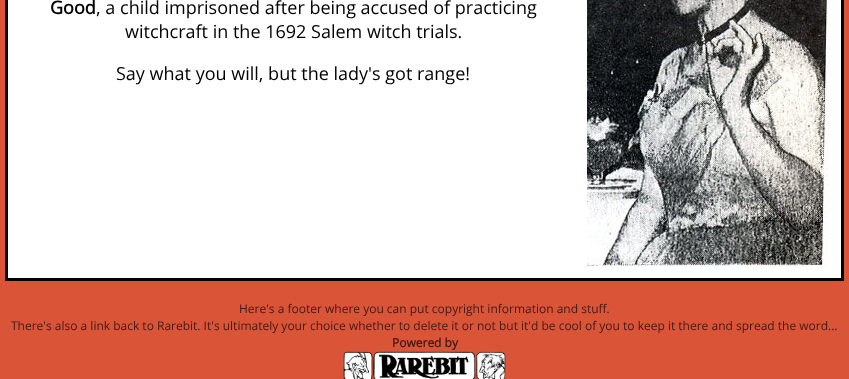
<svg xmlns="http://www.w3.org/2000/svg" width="849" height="379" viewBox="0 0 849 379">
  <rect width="100%" height="100%" fill="#da5437"/>
  <rect x="8" y="0" width="833" height="278" fill="#ffffff"/>
  <image x="587" y="0" width="242" height="266" href="img1.png"/>
  <rect x="6.5" y="-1.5" width="836" height="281" fill="none" stroke="#000000" stroke-width="3"/>
  <text x="50" y="14" font-family="Open Sans" font-size="18" font-weight="bold" fill="#000000">Good</text>
  <text x="96" y="14" font-family="Open Sans" font-size="18" fill="#000000">, a child imprisoned after being accused of practicing</text>
  <text x="125" y="38" font-family="Open Sans" font-size="18" fill="#000000">witchcraft in the 1692 Salem witch trials.</text>
  <text x="116" y="80" font-family="Open Sans" font-size="18" fill="#000000">Say what you will, but the lady's got range!</text>
  <text x="239" y="313" font-family="Open Sans" font-size="12" fill="#421a1a">Here's a footer where you can put copyright information and stuff.</text>
  <text x="11" y="330" font-family="Open Sans" font-size="12" fill="#421a1a">There's also a link back to Rarebit. It's ultimately your choice whether to delete it or not but it'd be cool of you to keep it there and spread the word...</text>
  <text x="392" y="347" font-family="Open Sans" font-size="12" font-weight="bold" fill="#421a1a">Powered by</text>
  <image x="343" y="351" width="163" height="28" href="img2.png"/>
</svg>
